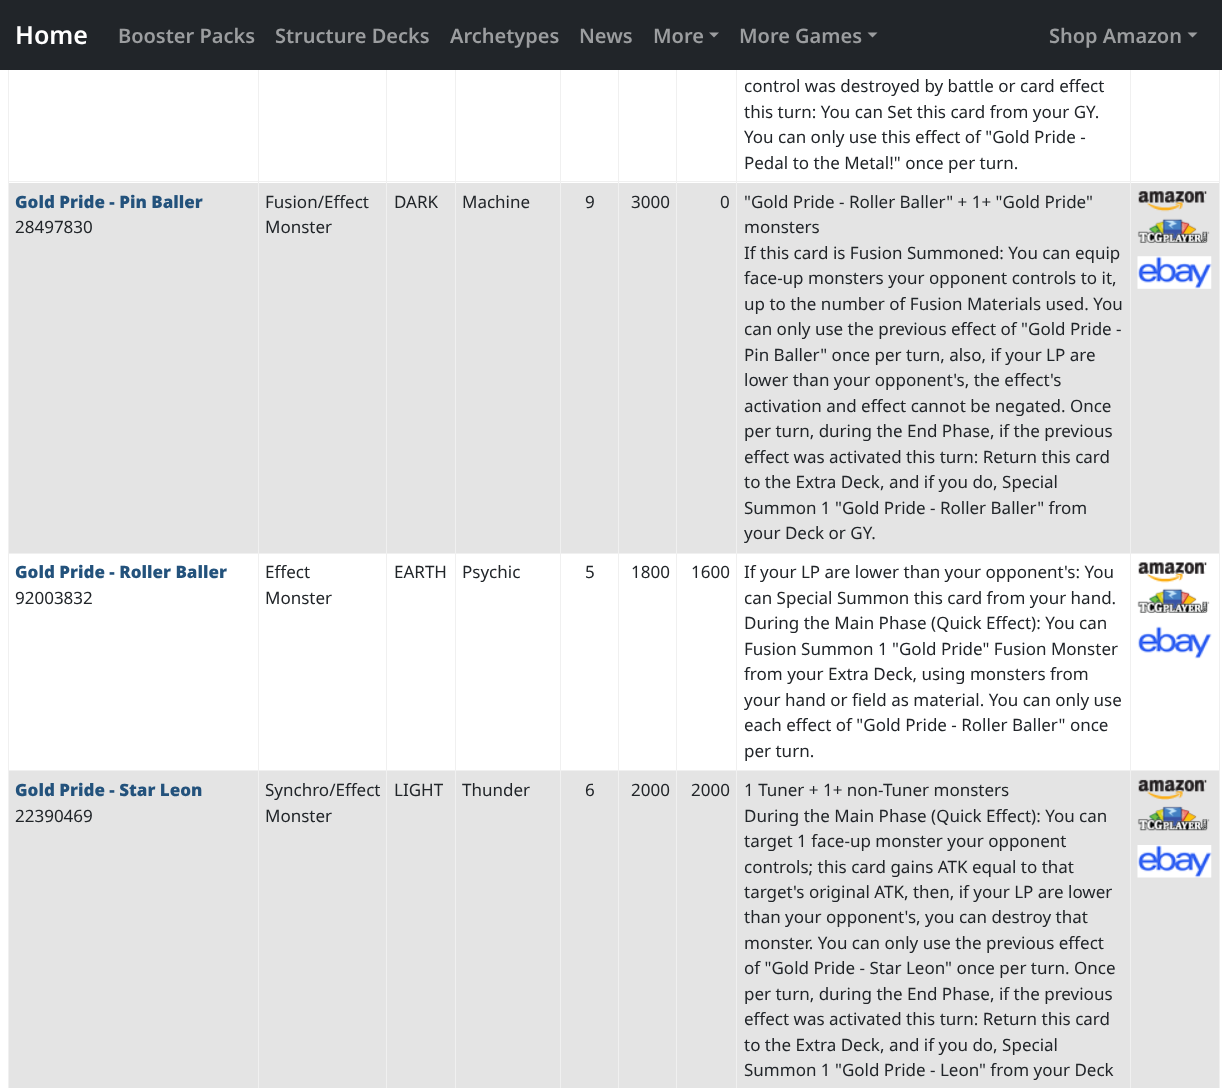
<svg xmlns="http://www.w3.org/2000/svg" width="1222" height="1088" viewBox="0 0 1222 1088">
  <rect width="100%" height="100%" fill="#ffffff"/>
  <rect x="0" y="0" width="1222" height="70" fill="#212529"/>
  <text x="15" y="44" font-family="Noto Sans" font-size="25" font-weight="600" fill="#ffffff">Home</text>
  <text x="118" y="43" font-family="Noto Sans" font-size="20" font-weight="600" fill="#9b9d9f">Booster Packs</text>
  <text x="275" y="43" font-family="Noto Sans" font-size="20" font-weight="600" fill="#9b9d9f">Structure Decks</text>
  <text x="450" y="43" font-family="Noto Sans" font-size="20" font-weight="600" fill="#9b9d9f">Archetypes</text>
  <text x="579" y="43" font-family="Noto Sans" font-size="20" font-weight="600" fill="#9b9d9f">News</text>
  <text x="653" y="43" font-family="Noto Sans" font-size="20" font-weight="600" fill="#9b9d9f">More</text>
  <path d="M709 32.5H719L714 37.5Z" fill="#9b9d9f"/>
  <text x="739" y="43" font-family="Noto Sans" font-size="20" font-weight="600" fill="#9b9d9f">More Games</text>
  <path d="M867.5 32.5H877.5L872.5 37.5Z" fill="#9b9d9f"/>
  <text x="1049" y="43" font-family="Noto Sans" font-size="20" font-weight="600" fill="#9b9d9f">Shop Amazon</text>
  <path d="M1187.5 32.5H1197.5L1192.5 37.5Z" fill="#9b9d9f"/>
  <rect x="1130" y="181" width="90" height="1" fill="#f0f0f0"/>
  <rect x="9" y="183" width="1210" height="370" fill="#e4e4e4"/>
  <rect x="1130" y="553" width="90" height="1" fill="#f0f0f0"/>
  <rect x="1130" y="770" width="90" height="1" fill="#f0f0f0"/>
  <rect x="9" y="771" width="1210" height="317" fill="#e4e4e4"/>
  <rect x="1130" y="770" width="1" height="318" fill="#f0f0f0"/>
  <rect x="736" y="770" width="395" height="1" fill="#f0f0f0"/>
  <rect x="1130" y="553" width="1" height="218" fill="#f0f0f0"/>
  <rect x="736" y="553" width="395" height="1" fill="#f0f0f0"/>
  <rect x="1130" y="181" width="1" height="373" fill="#f0f0f0"/>
  <rect x="736" y="181" width="395" height="1" fill="#f0f0f0"/>
  <rect x="736" y="770" width="1" height="318" fill="#f0f0f0"/>
  <rect x="676" y="770" width="62" height="1" fill="#f0f0f0"/>
  <rect x="736" y="553" width="1" height="218" fill="#f0f0f0"/>
  <rect x="676" y="553" width="62" height="1" fill="#f0f0f0"/>
  <rect x="736" y="181" width="1" height="373" fill="#f0f0f0"/>
  <rect x="676" y="181" width="62" height="1" fill="#f0f0f0"/>
  <rect x="676" y="770" width="1" height="318" fill="#f0f0f0"/>
  <rect x="618" y="770" width="60" height="1" fill="#f0f0f0"/>
  <rect x="676" y="553" width="1" height="218" fill="#f0f0f0"/>
  <rect x="618" y="553" width="60" height="1" fill="#f0f0f0"/>
  <rect x="676" y="181" width="1" height="373" fill="#f0f0f0"/>
  <rect x="618" y="181" width="60" height="1" fill="#f0f0f0"/>
  <rect x="618" y="770" width="1" height="318" fill="#f0f0f0"/>
  <rect x="560" y="770" width="59" height="1" fill="#f0f0f0"/>
  <rect x="618" y="553" width="1" height="218" fill="#f0f0f0"/>
  <rect x="560" y="553" width="59" height="1" fill="#f0f0f0"/>
  <rect x="618" y="181" width="1" height="373" fill="#f0f0f0"/>
  <rect x="560" y="181" width="59" height="1" fill="#f0f0f0"/>
  <rect x="560" y="770" width="1" height="318" fill="#f0f0f0"/>
  <rect x="455" y="770" width="106" height="1" fill="#f0f0f0"/>
  <rect x="560" y="553" width="1" height="218" fill="#f0f0f0"/>
  <rect x="455" y="553" width="106" height="1" fill="#f0f0f0"/>
  <rect x="560" y="181" width="1" height="373" fill="#f0f0f0"/>
  <rect x="455" y="181" width="106" height="1" fill="#f0f0f0"/>
  <rect x="455" y="770" width="1" height="318" fill="#f0f0f0"/>
  <rect x="386" y="770" width="70" height="1" fill="#f0f0f0"/>
  <rect x="455" y="553" width="1" height="218" fill="#f0f0f0"/>
  <rect x="386" y="553" width="70" height="1" fill="#f0f0f0"/>
  <rect x="455" y="181" width="1" height="373" fill="#f0f0f0"/>
  <rect x="386" y="181" width="70" height="1" fill="#f0f0f0"/>
  <rect x="386" y="770" width="1" height="318" fill="#f0f0f0"/>
  <rect x="258" y="770" width="130" height="1" fill="#f0f0f0"/>
  <rect x="386" y="553" width="1" height="218" fill="#f0f0f0"/>
  <rect x="258" y="553" width="130" height="1" fill="#f0f0f0"/>
  <rect x="386" y="181" width="1" height="373" fill="#f0f0f0"/>
  <rect x="258" y="181" width="130" height="1" fill="#f0f0f0"/>
  <rect x="258" y="770" width="1" height="318" fill="#f0f0f0"/>
  <rect x="8" y="770" width="251" height="1" fill="#f0f0f0"/>
  <rect x="258" y="553" width="1" height="218" fill="#f0f0f0"/>
  <rect x="8" y="553" width="251" height="1" fill="#f0f0f0"/>
  <rect x="258" y="181" width="1" height="373" fill="#f0f0f0"/>
  <rect x="8" y="181" width="251" height="1" fill="#f0f0f0"/>
  <rect x="258" y="70" width="1" height="113" fill="#f0f0f0"/>
  <rect x="386" y="70" width="1" height="113" fill="#f0f0f0"/>
  <rect x="455" y="70" width="1" height="113" fill="#f0f0f0"/>
  <rect x="560" y="70" width="1" height="113" fill="#f0f0f0"/>
  <rect x="618" y="70" width="1" height="113" fill="#f0f0f0"/>
  <rect x="676" y="70" width="1" height="113" fill="#f0f0f0"/>
  <rect x="736" y="70" width="1" height="113" fill="#f0f0f0"/>
  <text x="744" y="92" font-family="Noto Sans" font-size="17" fill="#212529">control was destroyed by battle or card effect</text>
  <text x="744" y="118" font-family="Noto Sans" font-size="17" fill="#212529">this turn: You can Set this card from your GY.</text>
  <text x="744" y="143" font-family="Noto Sans" font-size="17" fill="#212529">You can only use this effect of "Gold Pride -</text>
  <text x="744" y="169" font-family="Noto Sans" font-size="17" fill="#212529">Pedal to the Metal!" once per turn.</text>
  <rect x="1130" y="70" width="1" height="113" fill="#f0f0f0"/>
  <rect x="8" y="770" width="1" height="318" fill="#f0f0f0"/>
  <rect x="8" y="553" width="1" height="218" fill="#f0f0f0"/>
  <rect x="8" y="70" width="1" height="484" fill="#f0f0f0"/>
  <text x="15" y="208" font-family="Noto Sans" font-size="17" font-weight="900" fill="#23527c">Gold Pride - Pin Baller</text>
  <text x="15" y="233" font-family="Noto Sans" font-size="17" fill="#212529">28497830</text>
  <text x="265" y="208" font-family="Noto Sans" font-size="17" fill="#212529">Fusion/Effect</text>
  <text x="265" y="233" font-family="Noto Sans" font-size="17" fill="#212529">Monster</text>
  <text x="394" y="208" font-family="Noto Sans" font-size="17" fill="#212529">DARK</text>
  <text x="462" y="208" font-family="Noto Sans" font-size="17" fill="#212529">Machine</text>
  <text x="585" y="208" font-family="Noto Sans" font-size="17" fill="#212529">9</text>
  <text x="631" y="208" font-family="Noto Sans" font-size="17" fill="#212529">3000</text>
  <text x="720" y="208" font-family="Noto Sans" font-size="17" fill="#212529">0</text>
  <text x="744" y="208" font-family="Noto Sans" font-size="17" fill="#212529">"Gold Pride - Roller Baller" + 1+ "Gold Pride"</text>
  <text x="744" y="233" font-family="Noto Sans" font-size="17" fill="#212529">monsters</text>
  <text x="744" y="259" font-family="Noto Sans" font-size="17" fill="#212529">If this card is Fusion Summoned: You can equip</text>
  <text x="744" y="284" font-family="Noto Sans" font-size="17" fill="#212529">face-up monsters your opponent controls to it,</text>
  <text x="744" y="310" font-family="Noto Sans" font-size="17" fill="#212529">up to the number of Fusion Materials used. You</text>
  <text x="744" y="335" font-family="Noto Sans" font-size="17" fill="#212529">can only use the previous effect of "Gold Pride -</text>
  <text x="744" y="361" font-family="Noto Sans" font-size="17" fill="#212529">Pin Baller" once per turn, also, if your LP are</text>
  <text x="744" y="386" font-family="Noto Sans" font-size="17" fill="#212529">lower than your opponent's, the effect's</text>
  <text x="744" y="412" font-family="Noto Sans" font-size="17" fill="#212529">activation and effect cannot be negated. Once</text>
  <text x="744" y="437" font-family="Noto Sans" font-size="17" fill="#212529">per turn, during the End Phase, if the previous</text>
  <text x="744" y="463" font-family="Noto Sans" font-size="17" fill="#212529">effect was activated this turn: Return this card</text>
  <text x="744" y="488" font-family="Noto Sans" font-size="17" fill="#212529">to the Extra Deck, and if you do, Special</text>
  <text x="744" y="514" font-family="Noto Sans" font-size="17" fill="#212529">Summon 1 "Gold Pride - Roller Baller" from</text>
  <text x="744" y="539" font-family="Noto Sans" font-size="17" fill="#212529">your Deck or GY.</text>
  <rect x="1219" y="770" width="1" height="318" fill="#f0f0f0"/>
  <rect x="1219" y="553" width="1" height="218" fill="#f0f0f0"/>
  <rect x="1219" y="70" width="1" height="484" fill="#f0f0f0"/>
  <image x="1138" y="191" width="69" height="21" href="img1.png"/>
  <image x="1137" y="218" width="73" height="25" href="img2.png"/>
  <image x="1137" y="256" width="75" height="33" href="img3.png"/>
  <text x="15" y="578" font-family="Noto Sans" font-size="17" font-weight="900" fill="#23527c">Gold Pride - Roller Baller</text>
  <text x="15" y="604" font-family="Noto Sans" font-size="17" fill="#212529">92003832</text>
  <text x="265" y="578" font-family="Noto Sans" font-size="17" fill="#212529">Effect</text>
  <text x="265" y="604" font-family="Noto Sans" font-size="17" fill="#212529">Monster</text>
  <text x="394" y="578" font-family="Noto Sans" font-size="17" fill="#212529">EARTH</text>
  <text x="462" y="578" font-family="Noto Sans" font-size="17" fill="#212529">Psychic</text>
  <text x="585" y="578" font-family="Noto Sans" font-size="17" fill="#212529">5</text>
  <text x="631" y="578" font-family="Noto Sans" font-size="17" fill="#212529">1800</text>
  <text x="691" y="578" font-family="Noto Sans" font-size="17" fill="#212529">1600</text>
  <text x="744" y="578" font-family="Noto Sans" font-size="17" fill="#212529">If your LP are lower than your opponent's: You</text>
  <text x="744" y="604" font-family="Noto Sans" font-size="17" fill="#212529">can Special Summon this card from your hand.</text>
  <text x="744" y="629" font-family="Noto Sans" font-size="17" fill="#212529">During the Main Phase (Quick Effect): You can</text>
  <text x="744" y="655" font-family="Noto Sans" font-size="17" fill="#212529">Fusion Summon 1 "Gold Pride" Fusion Monster</text>
  <text x="744" y="680" font-family="Noto Sans" font-size="17" fill="#212529">from your Extra Deck, using monsters from</text>
  <text x="744" y="706" font-family="Noto Sans" font-size="17" fill="#212529">your hand or field as material. You can only use</text>
  <text x="744" y="731" font-family="Noto Sans" font-size="17" fill="#212529">each effect of "Gold Pride - Roller Baller" once</text>
  <text x="744" y="757" font-family="Noto Sans" font-size="17" fill="#212529">per turn.</text>
  <image x="1138" y="562" width="69" height="21" href="img4.png"/>
  <image x="1137" y="588" width="73" height="25" href="img5.png"/>
  <image x="1137" y="626" width="75" height="33" href="img6.png"/>
  <text x="15" y="796" font-family="Noto Sans" font-size="17" font-weight="900" fill="#23527c">Gold Pride - Star Leon</text>
  <text x="15" y="822" font-family="Noto Sans" font-size="17" fill="#212529">22390469</text>
  <text x="265" y="796" font-family="Noto Sans" font-size="17" fill="#212529">Synchro/Effect</text>
  <text x="265" y="822" font-family="Noto Sans" font-size="17" fill="#212529">Monster</text>
  <text x="394" y="796" font-family="Noto Sans" font-size="17" fill="#212529">LIGHT</text>
  <text x="462" y="796" font-family="Noto Sans" font-size="17" fill="#212529">Thunder</text>
  <text x="585" y="796" font-family="Noto Sans" font-size="17" fill="#212529">6</text>
  <text x="631" y="796" font-family="Noto Sans" font-size="17" fill="#212529">2000</text>
  <text x="691" y="796" font-family="Noto Sans" font-size="17" fill="#212529">2000</text>
  <text x="744" y="796" font-family="Noto Sans" font-size="17" fill="#212529">1 Tuner + 1+ non-Tuner monsters</text>
  <text x="744" y="822" font-family="Noto Sans" font-size="17" fill="#212529">During the Main Phase (Quick Effect): You can</text>
  <text x="744" y="847" font-family="Noto Sans" font-size="17" fill="#212529">target 1 face-up monster your opponent</text>
  <text x="744" y="873" font-family="Noto Sans" font-size="17" fill="#212529">controls; this card gains ATK equal to that</text>
  <text x="744" y="898" font-family="Noto Sans" font-size="17" fill="#212529">target's original ATK, then, if your LP are lower</text>
  <text x="744" y="923" font-family="Noto Sans" font-size="17" fill="#212529">than your opponent's, you can destroy that</text>
  <text x="744" y="949" font-family="Noto Sans" font-size="17" fill="#212529">monster. You can only use the previous effect</text>
  <text x="744" y="974" font-family="Noto Sans" font-size="17" fill="#212529">of "Gold Pride - Star Leon" once per turn. Once</text>
  <text x="744" y="1000" font-family="Noto Sans" font-size="17" fill="#212529">per turn, during the End Phase, if the previous</text>
  <text x="744" y="1025" font-family="Noto Sans" font-size="17" fill="#212529">effect was activated this turn: Return this card</text>
  <text x="744" y="1051" font-family="Noto Sans" font-size="17" fill="#212529">to the Extra Deck, and if you do, Special</text>
  <text x="744" y="1076" font-family="Noto Sans" font-size="17" fill="#212529">Summon 1 "Gold Pride - Leon" from your Deck</text>
  <image x="1138" y="779" width="69" height="21" href="img7.png"/>
  <image x="1137" y="806" width="73" height="25" href="img8.png"/>
  <image x="1137" y="845" width="75" height="33" href="img9.png"/>
</svg>
